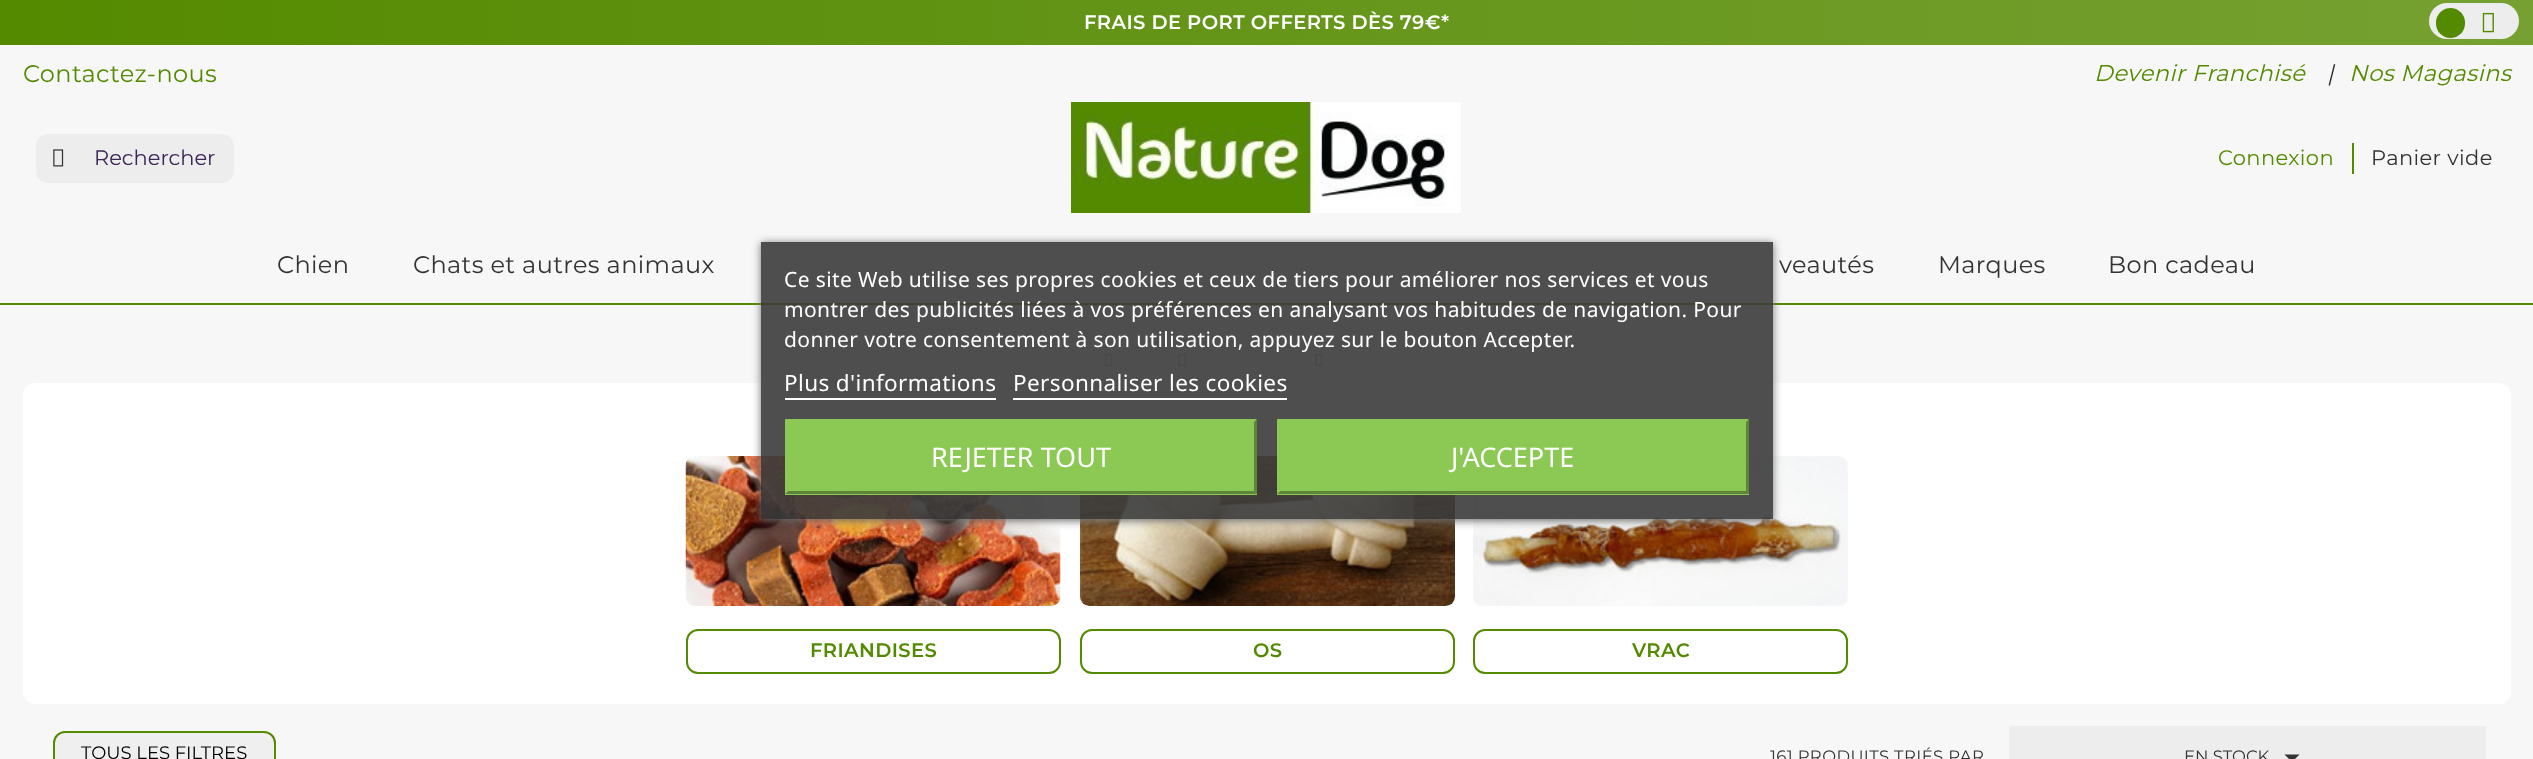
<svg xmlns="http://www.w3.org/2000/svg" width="2533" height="759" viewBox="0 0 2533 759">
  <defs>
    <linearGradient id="g1" gradientUnits="userSpaceOnUse" x1="0" y1="23" x2="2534" y2="22"><stop offset="0" stop-color="#548a00"/><stop offset="1" stop-color="#76a132"/></linearGradient>
    <clipPath id="clip1"><path d="M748 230H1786V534H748ZM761 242H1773V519H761Z" clip-rule="evenodd"/></clipPath>
    <filter id="blur1" x="-50%" y="-200%" width="200%" height="500%"><feGaussianBlur stdDeviation="4"/></filter>
  </defs>
  <rect width="100%" height="100%" fill="#f7f7f7"/>
  <rect x="0" y="0" width="2533" height="45" fill="url(#g1)"/>
  <text x="1084" y="29" font-family="Montserrat" font-size="19.5" font-weight="600" letter-spacing="0.38" fill="#ffffff">FRAIS DE PORT OFFERTS DÈS 79€*</text>
  <rect x="2429" y="3" width="90" height="36" rx="18" fill="#ededed"/>
  <rect x="2436" y="8" width="29" height="30" rx="14.5" fill="#548a00"/>
  <image x="2482" y="12" width="12" height="21" href="img1.png"/>
  <text x="23" y="82" font-family="Montserrat" font-size="24" letter-spacing="0.38" fill="#548a00">Contactez-nous</text>
  <text x="2094" y="81" font-family="Montserrat" font-size="22.75" font-style="italic" letter-spacing="0.38" fill="#548a00">Devenir Franchisé</text>
  <text x="2327" y="81" font-family="Montserrat" font-size="22.75" font-style="italic" letter-spacing="0.38" fill="#333333">|</text>
  <text x="2349" y="81" font-family="Montserrat" font-size="22.75" font-style="italic" letter-spacing="0.38" fill="#548a00">Nos Magasins</text>
  <rect x="36" y="134" width="198" height="49" rx="12" fill="#ededed"/>
  <image x="53" y="149" width="11" height="18" href="img2.png"/>
  <text x="94" y="165" font-family="Montserrat" font-size="21" fill="#3c2658">Rechercher</text>
  <image x="1071" y="102" width="390" height="111" href="img3.png"/>
  <rect x="2352" y="143" width="2" height="31" fill="#548a00"/>
  <text x="2218" y="165" font-family="Montserrat" font-size="21" letter-spacing="0.38" fill="#548a00">Connexion</text>
  <text x="2371" y="165" font-family="Montserrat" font-size="21" letter-spacing="0.38" fill="#333333">Panier vide</text>
  <rect x="0" y="303" width="2533" height="2" fill="#548a00"/>
  <image x="1105" y="354" width="8" height="12" href="img4.png"/>
  <image x="1178" y="354" width="8" height="12" href="img5.png"/>
  <image x="1315" y="354" width="8" height="12" href="img4.png"/>
  <rect x="23" y="383" width="2488" height="321" rx="12" fill="#ffffff"/>
  <image x="685" y="456" width="376" height="150" href="img6.png"/>
  <image x="1080" y="456" width="375" height="150" href="img7.png"/>
  <image x="1473" y="456" width="375" height="150" href="img8.png"/>
  <g clip-path="url(#clip1)">
    <rect x="761" y="243" width="1012" height="278" fill="#707070" filter="url(#blur1)"/>
  </g>
  <rect x="761" y="242" width="1012" height="277" fill="#3b3b3b" fill-opacity="0.9"/>
  <text x="784" y="287" font-family="Noto Sans" font-size="21" letter-spacing="0.38" fill="#ffffff">Ce site Web utilise ses propres cookies et ceux de tiers pour améliorer nos services et vous</text>
  <text x="784" y="317" font-family="Noto Sans" font-size="21" letter-spacing="0.38" fill="#ffffff">montrer des publicités liées à vos préférences en analysant vos habitudes de navigation. Pour</text>
  <text x="784" y="347" font-family="Noto Sans" font-size="21" letter-spacing="0.38" fill="#ffffff">donner votre consentement à son utilisation, appuyez sur le bouton Accepter.</text>
  <text x="784" y="391" font-family="Noto Sans" font-size="22.5" letter-spacing="0.38" fill="#ffffff">Plus d'informations</text>
  <rect x="785" y="398" width="211" height="2" fill="#ffffff"/>
  <text x="1013" y="391" font-family="Noto Sans" font-size="22.5" letter-spacing="0.38" fill="#ffffff">Personnaliser les cookies</text>
  <rect x="1013" y="398" width="274" height="2" fill="#ffffff"/>
  <rect x="785" y="420" width="472" height="75" fill="#8bc954"/>
  <path d="M785 419H1257L1254 422H788Z" fill="#8bc954"/>
  <path d="M1257 419V494L1254 491V422Z" fill="#5d8638"/>
  <path d="M1257 494H785L788 491H1254Z" fill="#5d8638"/>
  <path d="M785 494V419L788 422V491Z" fill="#8bc954"/>
  <text x="931" y="467" font-family="Noto Sans" font-size="27" fill="#ffffff">REJETER TOUT</text>
  <rect x="1277" y="420" width="472" height="75" fill="#8bc954"/>
  <path d="M1277 419H1749L1746 422H1280Z" fill="#8bc954"/>
  <path d="M1749 419V494L1746 491V422Z" fill="#5d8638"/>
  <path d="M1749 494H1277L1280 491H1746Z" fill="#5d8638"/>
  <path d="M1277 494V419L1280 422V491Z" fill="#8bc954"/>
  <text x="1451" y="467" font-family="Noto Sans" font-size="27" fill="#ffffff">J'ACCEPTE</text>
  <text x="277" y="273" font-family="Montserrat" font-size="24" letter-spacing="0.38" fill="#333333">Chien</text>
  <text x="413" y="273" font-family="Montserrat" font-size="24" letter-spacing="0.38" fill="#333333">Chats et autres animaux</text>
  <text x="1779" y="273" font-family="Montserrat" font-size="24" letter-spacing="0.38" fill="#333333">veautés</text>
  <text x="1938" y="273" font-family="Montserrat" font-size="24" letter-spacing="0.38" fill="#333333">Marques</text>
  <text x="2108" y="273" font-family="Montserrat" font-size="24" letter-spacing="0.38" fill="#333333">Bon cadeau</text>
  <rect x="687" y="630" width="373" height="43" rx="11" fill="none" stroke="#548a00" stroke-width="2"/>
  <text x="810" y="657" font-family="Montserrat" font-size="19.5" font-weight="600" letter-spacing="0.38" fill="#548a00">FRIANDISES</text>
  <rect x="1081" y="630" width="373" height="43" rx="11" fill="none" stroke="#548a00" stroke-width="2"/>
  <text x="1253" y="657" font-family="Montserrat" font-size="19.5" font-weight="600" letter-spacing="0.38" fill="#548a00">OS</text>
  <rect x="1474" y="630" width="373" height="43" rx="11" fill="none" stroke="#548a00" stroke-width="2"/>
  <text x="1632" y="657" font-family="Montserrat" font-size="19.5" font-weight="600" letter-spacing="0.38" fill="#548a00">VRAC</text>
  <rect x="54" y="732" width="221" height="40" rx="11" fill="#efefef" stroke="#548a00" stroke-width="2"/>
  <text x="81" y="759" font-family="Montserrat" font-size="18" fill="#000000">TOUS LES FILTRES</text>
  <text x="1770" y="762" font-family="Montserrat" font-size="16.5" letter-spacing="0.38" fill="#333333">161 PRODUITS TRIÉS PAR</text>
  <rect x="2009" y="726" width="477" height="33" fill="#ededed"/>
  <text x="2184" y="762" font-family="Montserrat" font-size="16.5" fill="#333333">EN STOCK</text>
  <path d="M2284.5 754.5H2299.5L2292 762Z" fill="#333333"/>
</svg>
